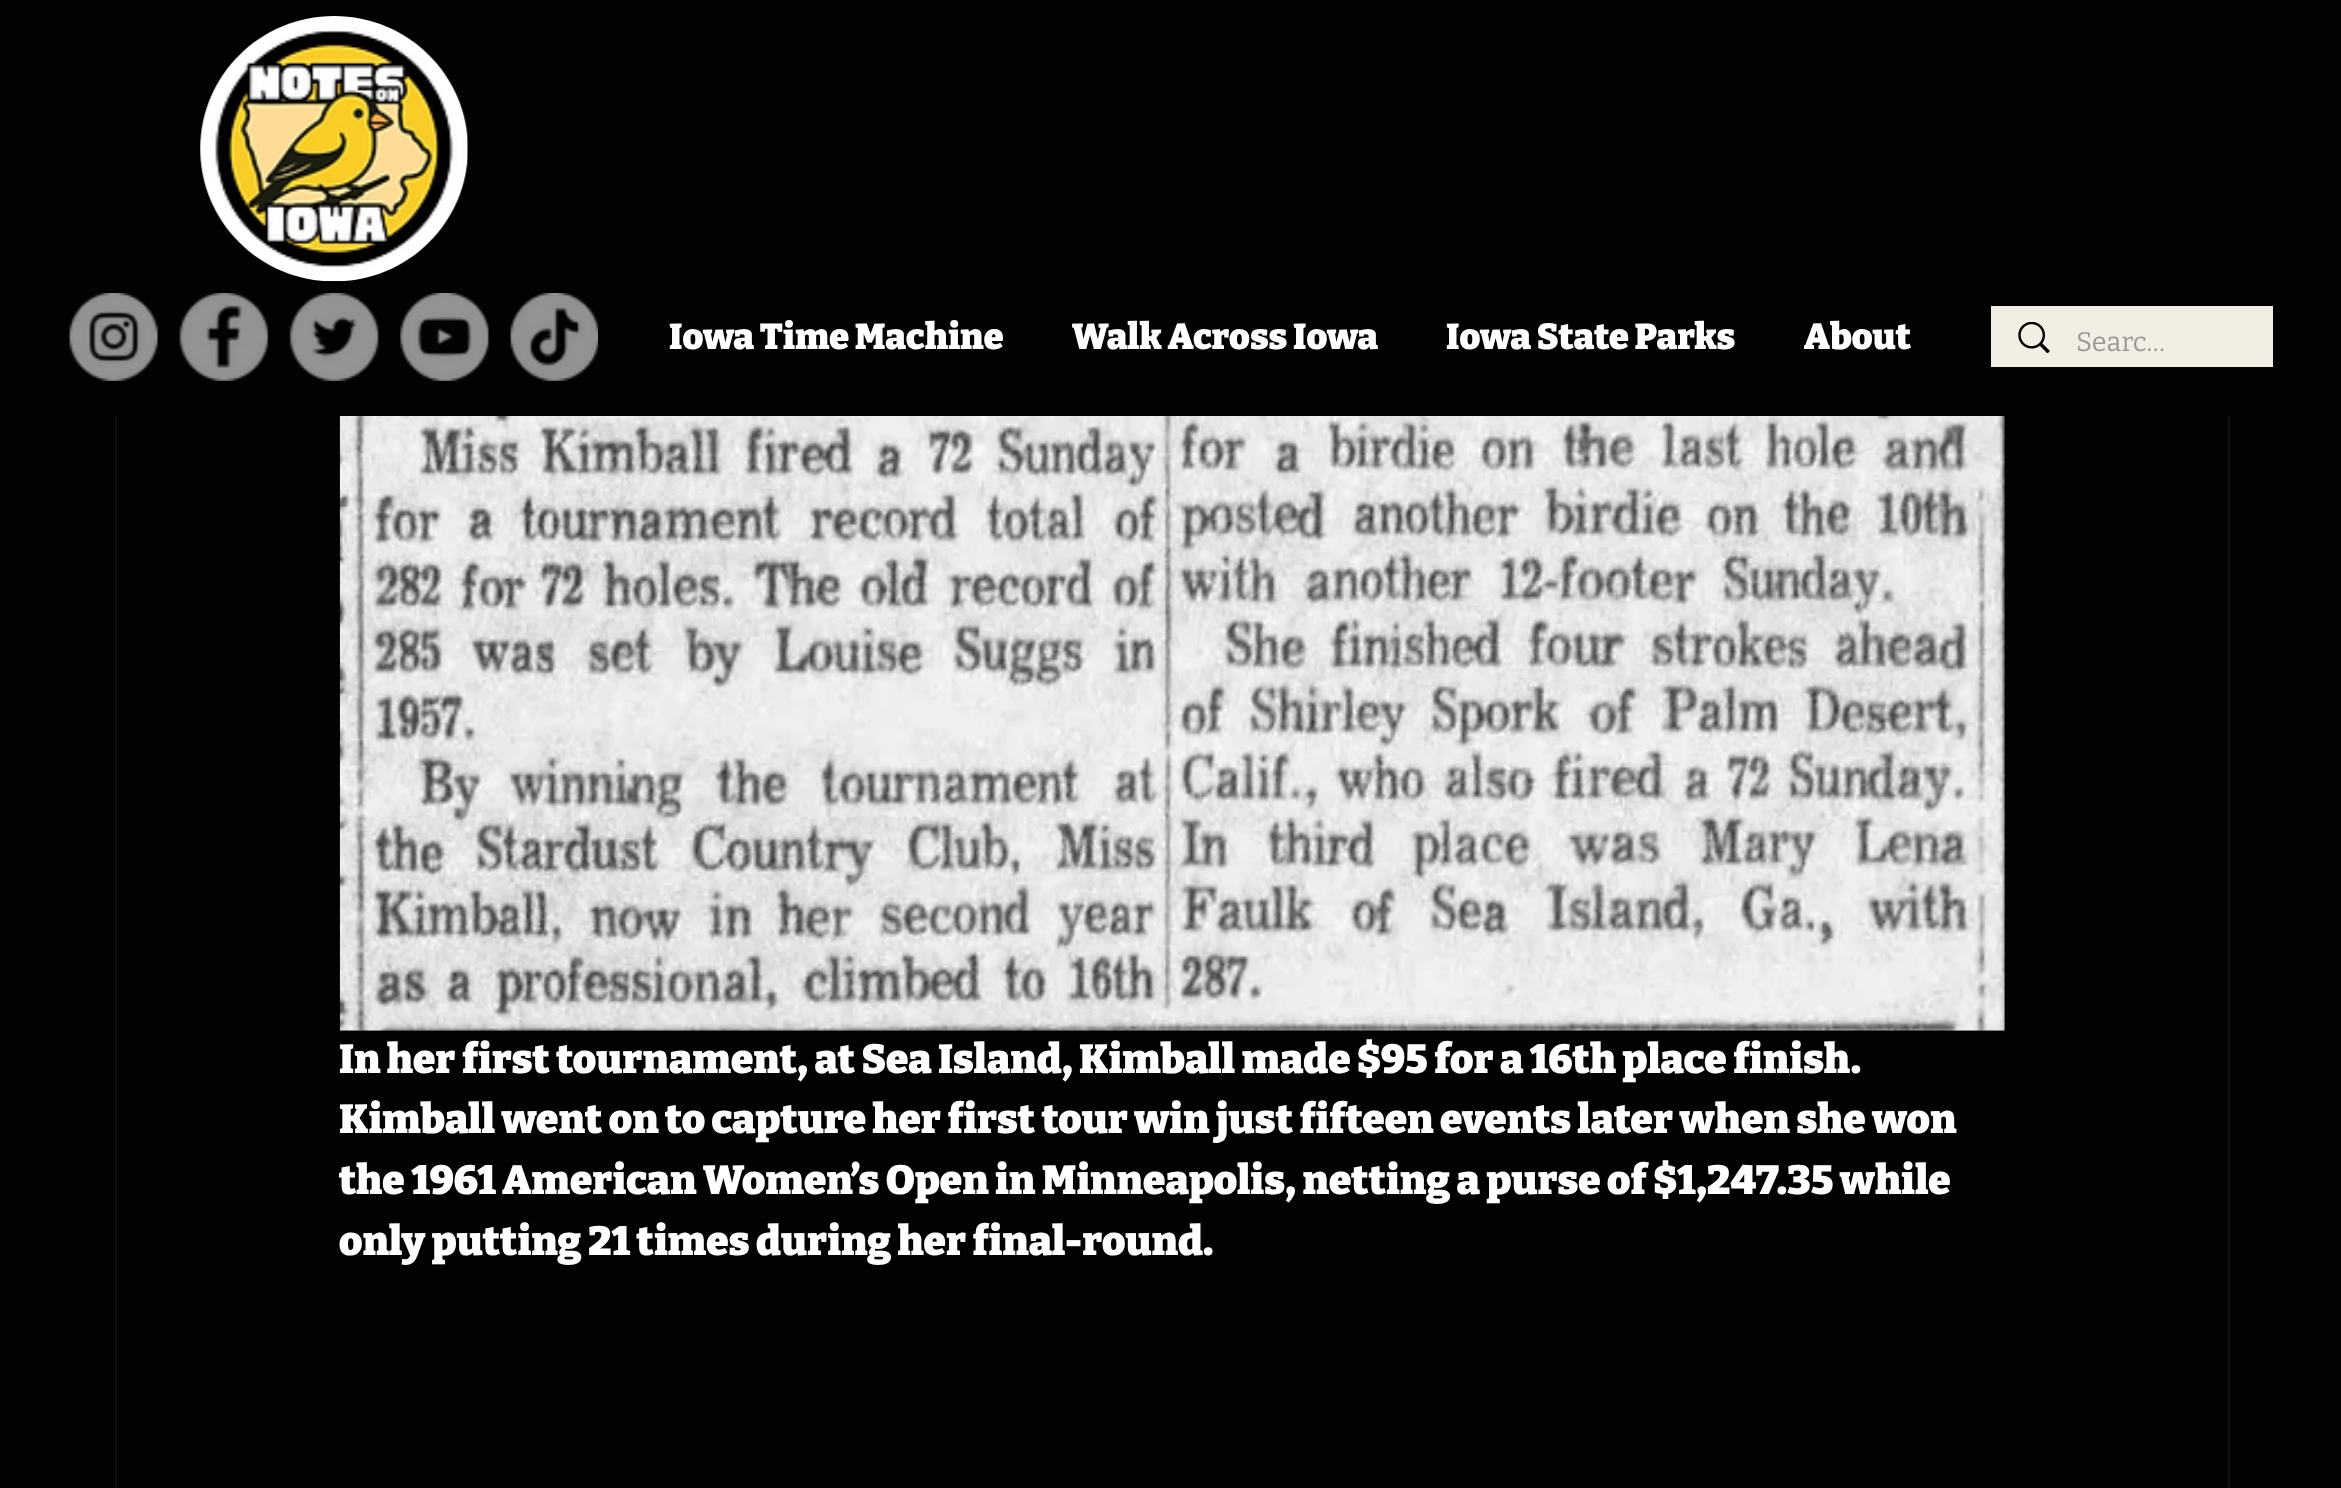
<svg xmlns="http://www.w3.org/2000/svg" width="2341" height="1488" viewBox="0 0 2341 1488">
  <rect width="100%" height="100%" fill="#020202"/>
  <rect x="116" y="-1" width="2113" height="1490" fill="none" stroke="#101010" stroke-width="2"/>
  <rect x="115" y="0" width="2115" height="416" fill="#020202"/>
  <image x="200" y="16" width="268" height="266" href="img1.png"/>
  <image x="69" y="293" width="89" height="88" href="img2.png"/>
  <image x="179" y="293" width="90" height="88" href="img3.png"/>
  <image x="289" y="293" width="90" height="88" href="img4.png"/>
  <image x="400" y="293" width="89" height="88" href="img5.png"/>
  <image x="510" y="293" width="88" height="88" href="img6.png"/>
  <text x="669" y="349" font-family="Bitter" font-size="36" font-weight="900" fill="#ffffff">Iowa Time Machine</text>
  <text x="1072" y="349" font-family="Bitter" font-size="36" font-weight="900" fill="#ffffff">Walk Across Iowa</text>
  <text x="1446" y="349" font-family="Bitter" font-size="36" font-weight="900" fill="#ffffff">Iowa State Parks</text>
  <text x="1804" y="349" font-family="Bitter" font-size="36" font-weight="900" fill="#ffffff">About</text>
  <rect x="1991" y="306" width="282" height="61" fill="#f2eee4"/>
  <image x="2018" y="322" width="32" height="31" href="img7.png"/>
  <text x="2076" y="351" font-family="Bitter" font-size="27" fill="#999999">Searc…</text>
  <image x="339" y="416" width="1666" height="615" href="img8.png"/>
  <text x="339" y="1073" font-family="Bitter" font-size="40.5" font-weight="900" fill="#ffffff">In her first tournament, at Sea Island, Kimball made $95 for a 16th place finish.</text>
  <text x="339" y="1133" font-family="Bitter" font-size="40.5" font-weight="900" fill="#ffffff">Kimball went on to capture her first tour win just fifteen events later when she won</text>
  <text x="339" y="1194" font-family="Bitter" font-size="40.5" font-weight="900" fill="#ffffff">the 1961 American Women’s Open in Minneapolis, netting a purse of $1,247.35 while</text>
  <text x="339" y="1255" font-family="Bitter" font-size="40.5" font-weight="900" fill="#ffffff">only putting 21 times during her final-round.</text>
</svg>
